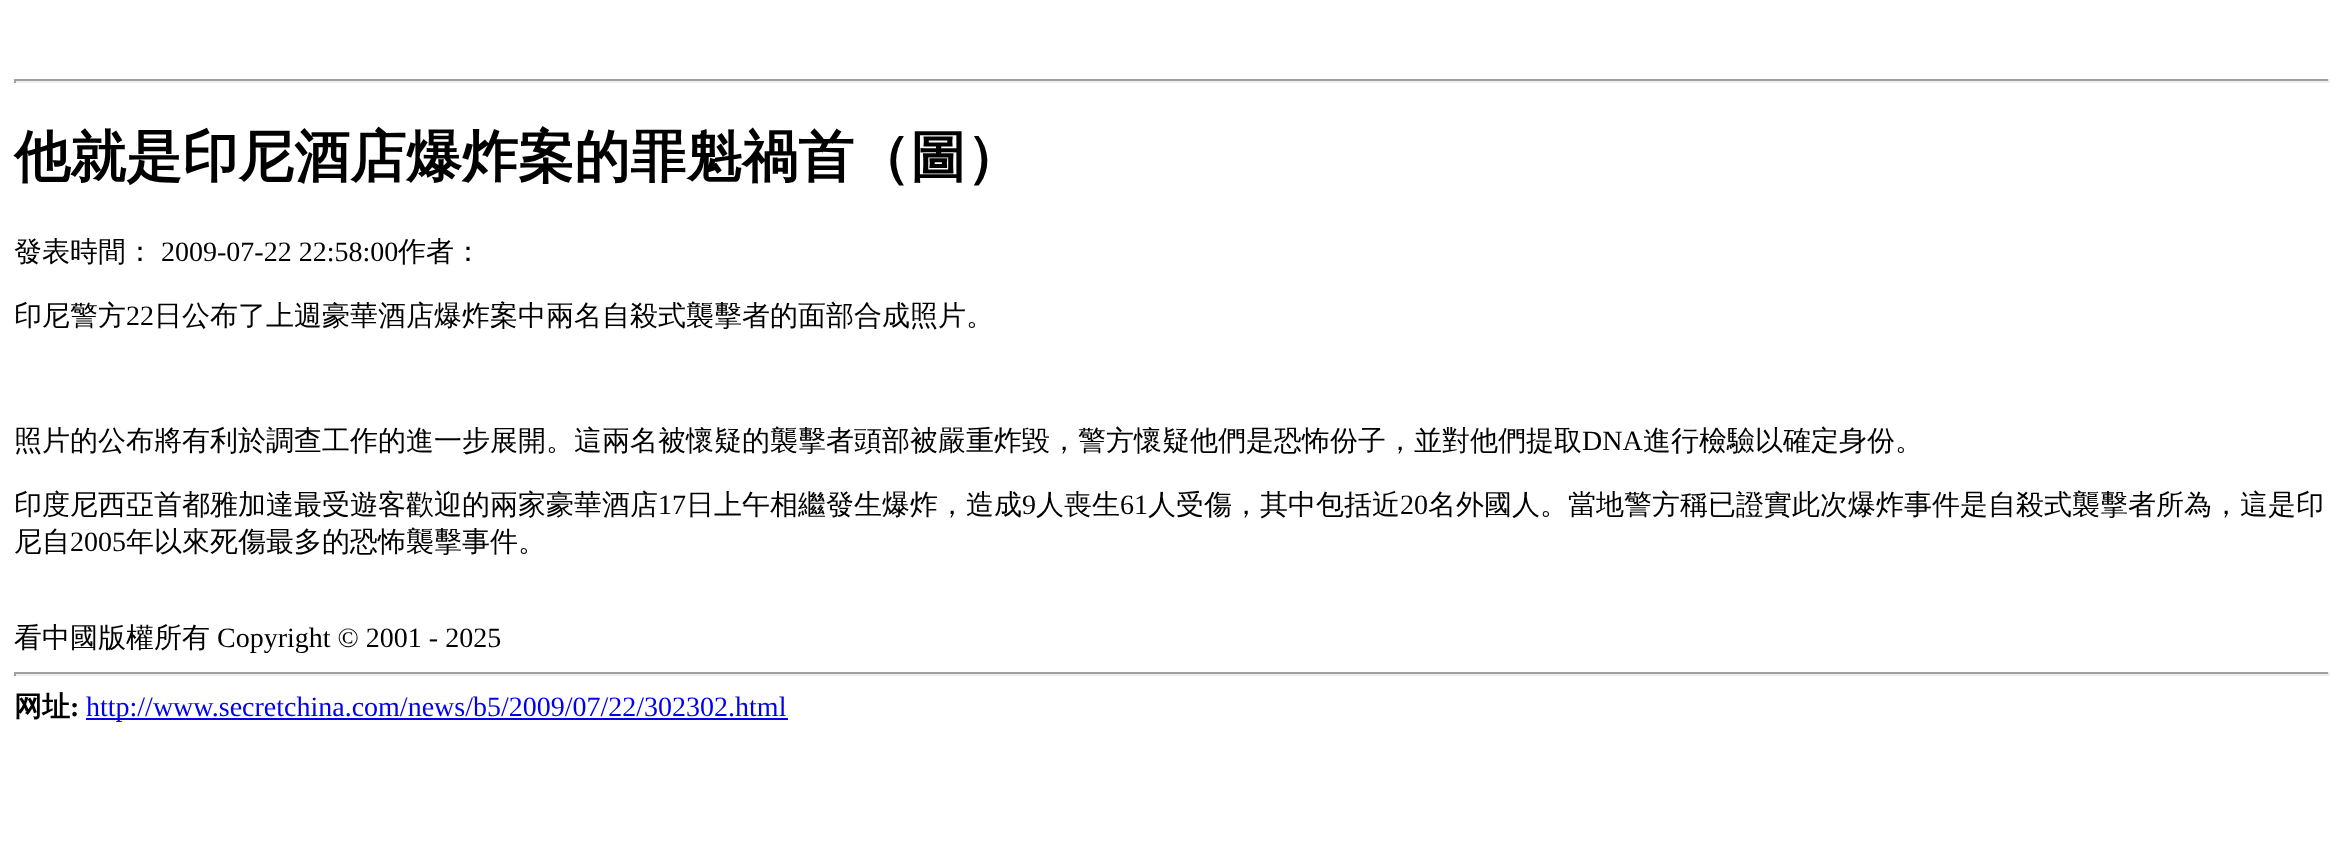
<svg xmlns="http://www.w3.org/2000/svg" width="2343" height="843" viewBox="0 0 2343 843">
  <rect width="100%" height="100%" fill="#ffffff"/>
  <rect x="14" y="79" width="2315" height="2" fill="#9f9f9f"/>
  <rect x="2328" y="79" width="2" height="4" fill="#eeeeee"/>
  <rect x="14" y="81" width="2315" height="2" fill="#eeeeee"/>
  <rect x="14" y="79" width="2" height="4" fill="#9f9f9f"/>
  <text x="14" y="176" font-family="WenQuanYi Zen Hei" font-size="56" font-weight="bold" fill="#000000">他就是印尼酒店爆炸案的罪魁禍首（圖）</text>
  <text x="14" y="261" font-family="WenQuanYi Zen Hei" font-size="28" font-weight="500" fill="#000000">發表時間：</text>
  <text x="161" y="261" font-family="Liberation Serif" font-size="28" fill="#000000">2009-07-22 22:58:00</text>
  <text x="398" y="261" font-family="WenQuanYi Zen Hei" font-size="28" font-weight="500" fill="#000000">作者：</text>
  <text x="14" y="325" font-family="WenQuanYi Zen Hei" font-size="28" font-weight="500" fill="#000000">印尼警方</text>
  <text x="126" y="325" font-family="Liberation Serif" font-size="28" fill="#000000">22</text>
  <text x="154" y="325" font-family="WenQuanYi Zen Hei" font-size="28" font-weight="500" fill="#000000">日公布了上週豪華酒店爆炸案中兩名自殺式襲擊者的面部合成照片。</text>
  <text x="14" y="450" font-family="WenQuanYi Zen Hei" font-size="28" font-weight="500" fill="#000000">照片的公布將有利於調查工作的進一步展開。這兩名被懷疑的襲擊者頭部被嚴重炸毀，警方懷疑他們是恐怖份子，並對他們提取</text>
  <text x="1582" y="450" font-family="Liberation Serif" font-size="28" fill="#000000">DNA</text>
  <text x="1643" y="450" font-family="WenQuanYi Zen Hei" font-size="28" font-weight="500" fill="#000000">進行檢驗以確定身份。</text>
  <text x="14" y="514" font-family="WenQuanYi Zen Hei" font-size="28" font-weight="500" fill="#000000">印度尼西亞首都雅加達最受遊客歡迎的兩家豪華酒店</text>
  <text x="658" y="514" font-family="Liberation Serif" font-size="28" fill="#000000">17</text>
  <text x="686" y="514" font-family="WenQuanYi Zen Hei" font-size="28" font-weight="500" fill="#000000">日上午相繼發生爆炸，造成</text>
  <text x="1022" y="514" font-family="Liberation Serif" font-size="28" fill="#000000">9</text>
  <text x="1036" y="514" font-family="WenQuanYi Zen Hei" font-size="28" font-weight="500" fill="#000000">人喪生</text>
  <text x="1120" y="514" font-family="Liberation Serif" font-size="28" fill="#000000">61</text>
  <text x="1148" y="514" font-family="WenQuanYi Zen Hei" font-size="28" font-weight="500" fill="#000000">人受傷，其中包括近</text>
  <text x="1400" y="514" font-family="Liberation Serif" font-size="28" fill="#000000">20</text>
  <text x="1428" y="514" font-family="WenQuanYi Zen Hei" font-size="28" font-weight="500" fill="#000000">名外國人。當地警方稱已證實此次爆炸事件是自殺式襲擊者所為，這是印</text>
  <text x="14" y="551" font-family="WenQuanYi Zen Hei" font-size="28" font-weight="500" fill="#000000">尼自</text>
  <text x="70" y="551" font-family="Liberation Serif" font-size="28" fill="#000000">2005</text>
  <text x="126" y="551" font-family="WenQuanYi Zen Hei" font-size="28" font-weight="500" fill="#000000">年以來死傷最多的恐怖襲擊事件。</text>
  <text x="14" y="647" font-family="WenQuanYi Zen Hei" font-size="28" font-weight="500" fill="#000000">看中國版權所有</text>
  <text x="217" y="647" font-family="Liberation Serif" font-size="28" fill="#000000">Copyright © 2001 - 2025</text>
  <rect x="14" y="672" width="2315" height="2" fill="#9f9f9f"/>
  <rect x="2328" y="672" width="2" height="4" fill="#eeeeee"/>
  <rect x="14" y="674" width="2315" height="2" fill="#eeeeee"/>
  <rect x="14" y="672" width="2" height="4" fill="#9f9f9f"/>
  <text x="14" y="716" font-family="WenQuanYi Zen Hei" font-size="28" font-weight="bold" fill="#000000">网址</text>
  <text x="70" y="716" font-family="Liberation Serif" font-size="28" font-weight="bold" fill="#000000">:</text>
  <rect x="86" y="718" width="702" height="2" fill="#0000ee"/>
  <text x="86" y="716" font-family="Liberation Serif" font-size="28" fill="#0000ee">http://www.secretchina.com/news/b5/2009/07/22/302302.html</text>
</svg>
